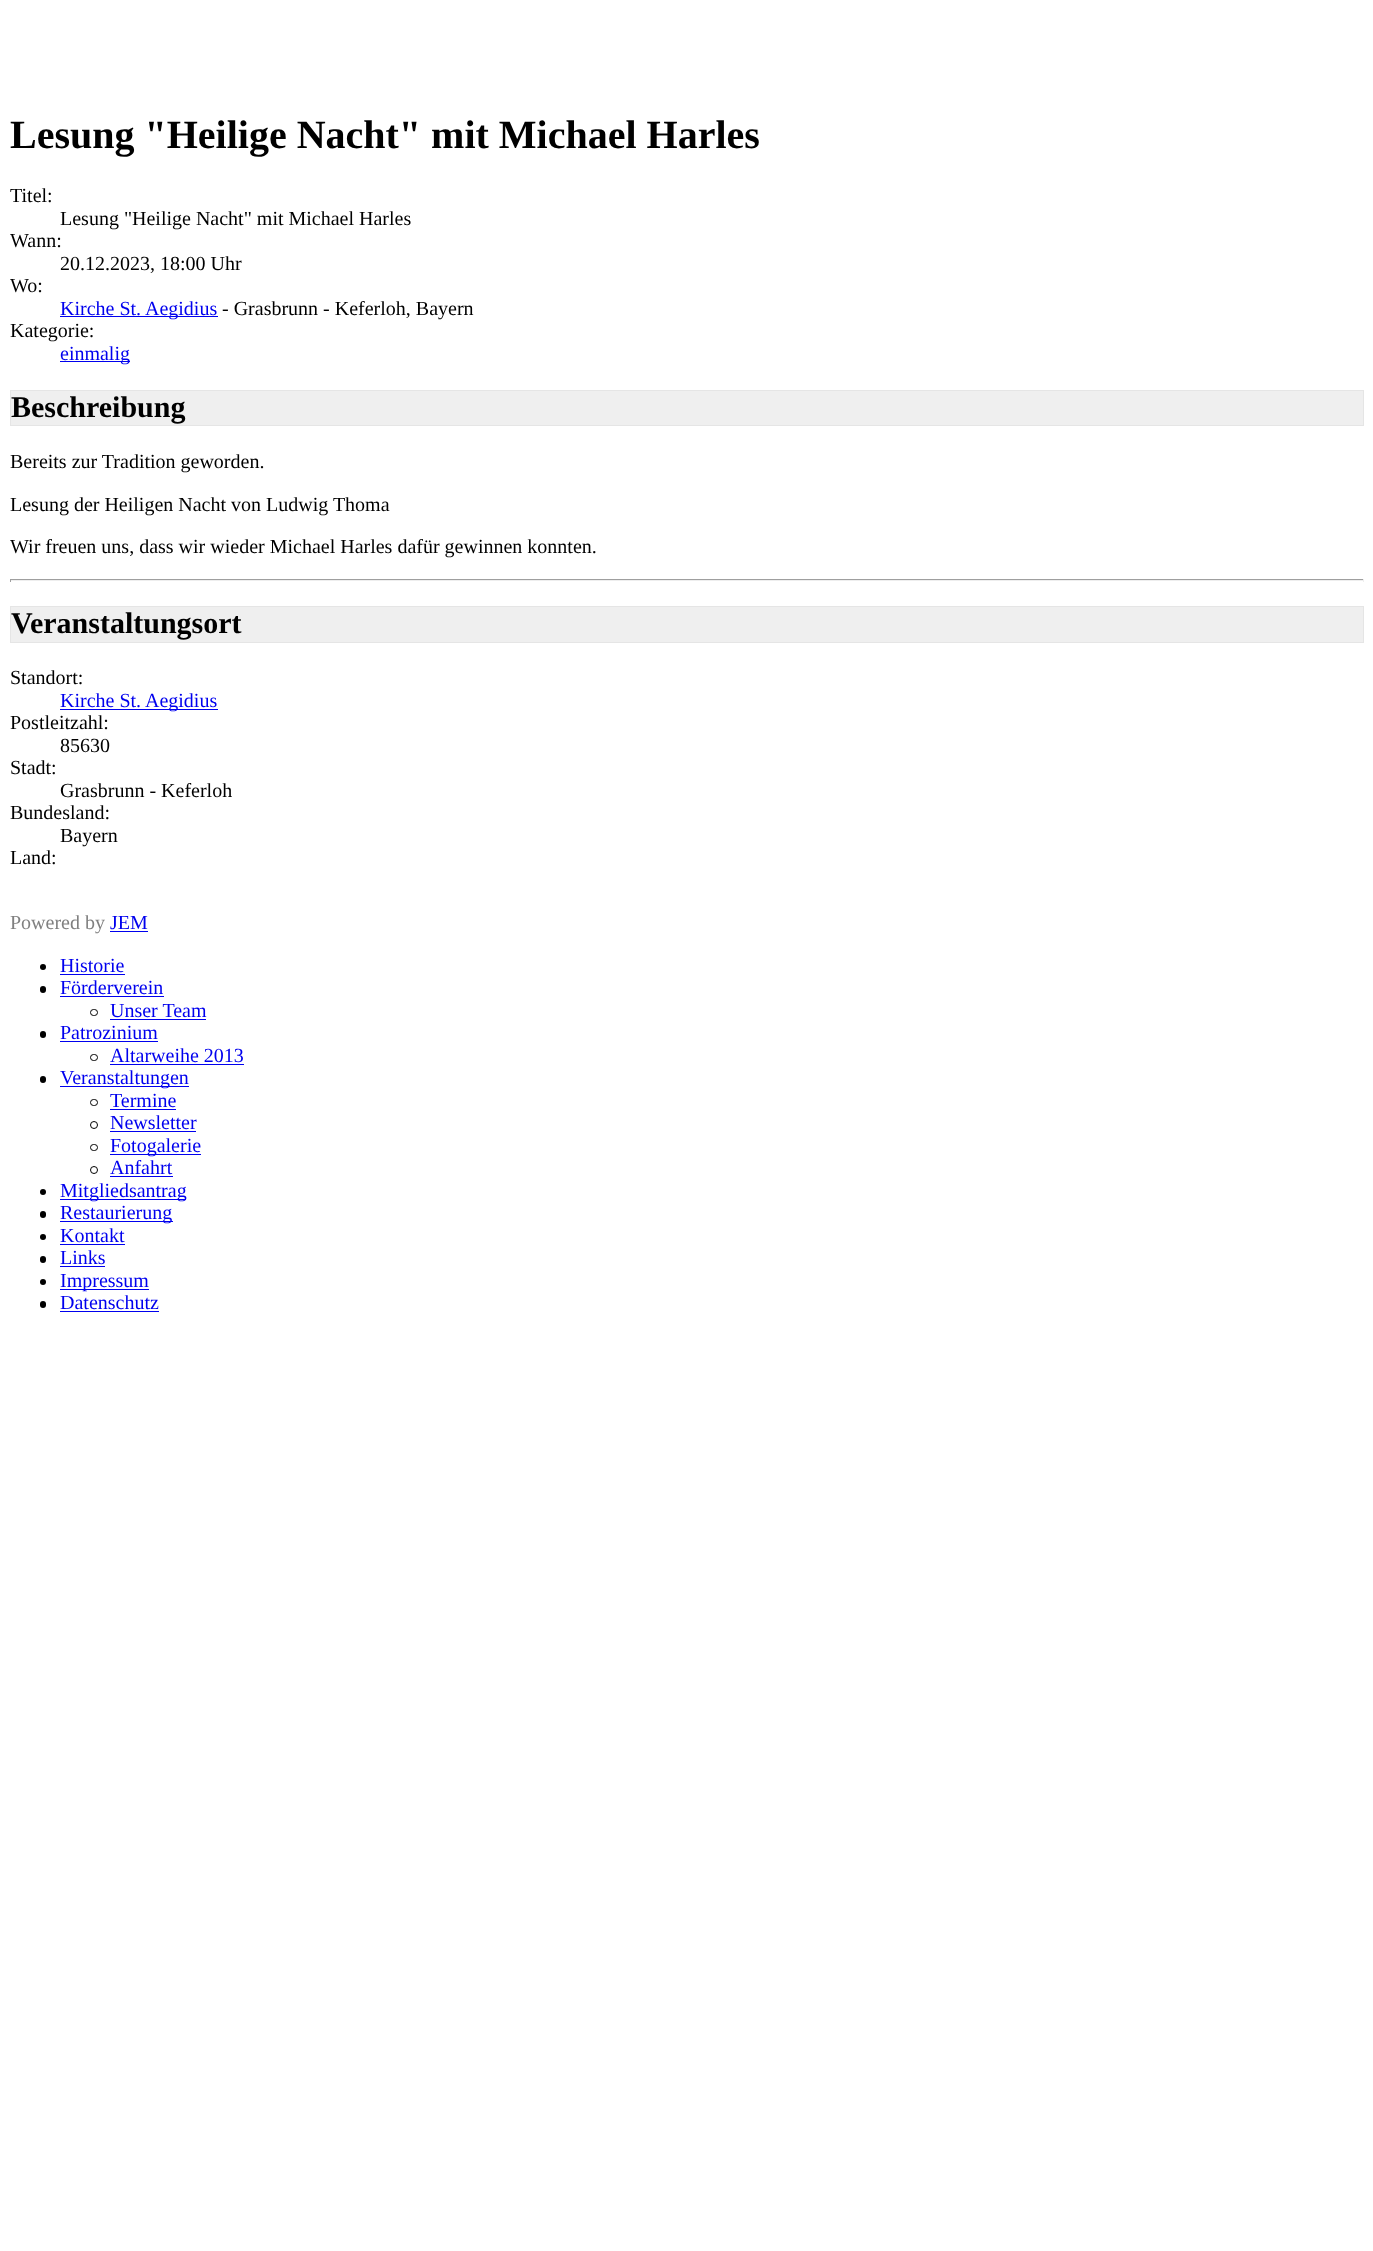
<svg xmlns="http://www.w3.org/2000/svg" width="1373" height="2251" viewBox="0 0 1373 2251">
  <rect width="100%" height="100%" fill="#ffffff"/>
  <text x="10" y="148" font-family="Liberation Serif" font-size="40" font-weight="bold" fill="#000000">Lesung "Heilige Nacht" mit Michael Harles</text>
  <text x="10" y="202" font-family="Liberation Serif" font-size="20" fill="#000000">Titel:</text>
  <text x="60" y="225" font-family="Liberation Serif" font-size="20" fill="#000000">Lesung "Heilige Nacht" mit Michael Harles</text>
  <text x="10" y="247" font-family="Liberation Serif" font-size="20" fill="#000000">Wann:</text>
  <text x="60" y="270" font-family="Liberation Serif" font-size="20" fill="#000000">20.12.2023, 18:00 Uhr</text>
  <text x="10" y="292" font-family="Liberation Serif" font-size="20" fill="#000000">Wo:</text>
  <rect x="60" y="316" width="158" height="1" fill="#0000ee"/>
  <text x="60" y="315" font-family="Liberation Serif" font-size="20" fill="#0000ee">Kirche St. Aegidius</text>
  <text x="222" y="315" font-family="Liberation Serif" font-size="20" fill="#000000">- Grasbrunn - Keferloh, Bayern</text>
  <text x="10" y="337" font-family="Liberation Serif" font-size="20" fill="#000000">Kategorie:</text>
  <rect x="60" y="361" width="70" height="1" fill="#0000ee"/>
  <text x="60" y="360" font-family="Liberation Serif" font-size="20" fill="#0000ee">einmalig</text>
  <rect x="10.5" y="390.5" width="1353" height="35" fill="#efefef" stroke="#e5e5e5"/>
  <text x="11" y="417" font-family="Liberation Serif" font-size="30" font-weight="bold" fill="#000000">Beschreibung</text>
  <text x="10" y="468" font-family="Liberation Serif" font-size="20" fill="#000000">Bereits zur Tradition geworden.</text>
  <text x="10" y="511" font-family="Liberation Serif" font-size="20" fill="#000000">Lesung der Heiligen Nacht von Ludwig Thoma</text>
  <text x="10" y="553" font-family="Liberation Serif" font-size="20" fill="#000000">Wir freuen uns, dass wir wieder Michael Harles dafür gewinnen konnten.</text>
  <rect x="10" y="579" width="1354" height="1" fill="#9f9f9f"/>
  <rect x="1363" y="579" width="1" height="3" fill="#eeeeee"/>
  <rect x="10" y="580" width="1354" height="1" fill="#eeeeee"/>
  <rect x="10" y="579" width="1" height="3" fill="#9f9f9f"/>
  <rect x="10.5" y="606.5" width="1353" height="36" fill="#efefef" stroke="#e5e5e5"/>
  <text x="11" y="633" font-family="Liberation Serif" font-size="30" font-weight="bold" fill="#000000">Veranstaltungsort</text>
  <text x="10" y="684" font-family="Liberation Serif" font-size="20" fill="#000000">Standort:</text>
  <rect x="60" y="709" width="158" height="1" fill="#0000ee"/>
  <text x="60" y="707" font-family="Liberation Serif" font-size="20" fill="#0000ee">Kirche St. Aegidius</text>
  <text x="10" y="729" font-family="Liberation Serif" font-size="20" fill="#000000">Postleitzahl:</text>
  <text x="60" y="752" font-family="Liberation Serif" font-size="20" fill="#000000">85630</text>
  <text x="10" y="774" font-family="Liberation Serif" font-size="20" fill="#000000">Stadt:</text>
  <text x="60" y="797" font-family="Liberation Serif" font-size="20" fill="#000000">Grasbrunn - Keferloh</text>
  <text x="10" y="819" font-family="Liberation Serif" font-size="20" fill="#000000">Bundesland:</text>
  <text x="60" y="842" font-family="Liberation Serif" font-size="20" fill="#000000">Bayern</text>
  <text x="10" y="864" font-family="Liberation Serif" font-size="20" fill="#000000">Land:</text>
  <text x="10" y="929" font-family="Liberation Serif" font-size="20" fill="#808080">Powered by</text>
  <text x="110" y="929" font-family="Liberation Serif" font-size="20" fill="#0000ee">JEM</text>
  <rect x="110" y="931" width="38" height="1" fill="#0000ee"/>
  <circle cx="43" cy="967" r="3" fill="#000000"/>
  <text x="60" y="972" font-family="Liberation Serif" font-size="20" fill="#0000ee">Historie</text>
  <rect x="60" y="974" width="65" height="1" fill="#0000ee"/>
  <rect x="40" y="986" width="6" height="7" rx="3" fill="#000000"/>
  <text x="60" y="994" font-family="Liberation Serif" font-size="20" fill="#0000ee">Förderverein</text>
  <rect x="60" y="996" width="104" height="1" fill="#0000ee"/>
  <rect x="90.5" y="1009.5" width="7" height="6" rx="3" fill="none" stroke="#000000"/>
  <text x="110" y="1017" font-family="Liberation Serif" font-size="20" fill="#0000ee">Unser Team</text>
  <rect x="110" y="1019" width="96" height="1" fill="#0000ee"/>
  <rect x="40" y="1031" width="6" height="7" rx="3" fill="#000000"/>
  <text x="60" y="1039" font-family="Liberation Serif" font-size="20" fill="#0000ee">Patrozinium</text>
  <rect x="60" y="1041" width="98" height="1" fill="#0000ee"/>
  <rect x="90.5" y="1054.5" width="7" height="6" rx="3" fill="none" stroke="#000000"/>
  <text x="110" y="1062" font-family="Liberation Serif" font-size="20" fill="#0000ee">Altarweihe 2013</text>
  <rect x="110" y="1064" width="134" height="1" fill="#0000ee"/>
  <rect x="40" y="1076" width="6" height="7" rx="3" fill="#000000"/>
  <rect x="60" y="1086" width="129" height="1" fill="#0000ee"/>
  <text x="60" y="1084" font-family="Liberation Serif" font-size="20" fill="#0000ee">Veranstaltungen</text>
  <rect x="90.5" y="1099.5" width="7" height="6" rx="3" fill="none" stroke="#000000"/>
  <text x="110" y="1107" font-family="Liberation Serif" font-size="20" fill="#0000ee">Termine</text>
  <rect x="110" y="1109" width="66" height="1" fill="#0000ee"/>
  <circle cx="94" cy="1125" r="3.5" fill="none" stroke="#000000"/>
  <text x="110" y="1129" font-family="Liberation Serif" font-size="20" fill="#0000ee">Newsletter</text>
  <rect x="110" y="1131" width="86" height="1" fill="#0000ee"/>
  <rect x="90.5" y="1144.5" width="7" height="6" rx="3" fill="none" stroke="#000000"/>
  <rect x="110" y="1154" width="91" height="1" fill="#0000ee"/>
  <text x="110" y="1152" font-family="Liberation Serif" font-size="20" fill="#0000ee">Fotogalerie</text>
  <circle cx="94" cy="1170" r="3.5" fill="none" stroke="#000000"/>
  <text x="110" y="1174" font-family="Liberation Serif" font-size="20" fill="#0000ee">Anfahrt</text>
  <rect x="110" y="1176" width="63" height="1" fill="#0000ee"/>
  <circle cx="43" cy="1192" r="3" fill="#000000"/>
  <rect x="60" y="1199" width="126" height="1" fill="#0000ee"/>
  <text x="60" y="1197" font-family="Liberation Serif" font-size="20" fill="#0000ee">Mitgliedsantrag</text>
  <rect x="40" y="1211" width="6" height="7" rx="3" fill="#000000"/>
  <rect x="60" y="1221" width="113" height="1" fill="#0000ee"/>
  <text x="60" y="1219" font-family="Liberation Serif" font-size="20" fill="#0000ee">Restaurierung</text>
  <circle cx="43" cy="1237" r="3" fill="#000000"/>
  <text x="60" y="1242" font-family="Liberation Serif" font-size="20" fill="#0000ee">Kontakt</text>
  <rect x="60" y="1244" width="65" height="1" fill="#0000ee"/>
  <rect x="40" y="1256" width="6" height="7" rx="3" fill="#000000"/>
  <text x="60" y="1264" font-family="Liberation Serif" font-size="20" fill="#0000ee">Links</text>
  <rect x="60" y="1266" width="45" height="1" fill="#0000ee"/>
  <circle cx="43" cy="1282" r="3" fill="#000000"/>
  <rect x="60" y="1289" width="89" height="1" fill="#0000ee"/>
  <text x="60" y="1287" font-family="Liberation Serif" font-size="20" fill="#0000ee">Impressum</text>
  <rect x="40" y="1301" width="6" height="7" rx="3" fill="#000000"/>
  <text x="60" y="1309" font-family="Liberation Serif" font-size="20" fill="#0000ee">Datenschutz</text>
  <rect x="60" y="1311" width="99" height="1" fill="#0000ee"/>
</svg>
